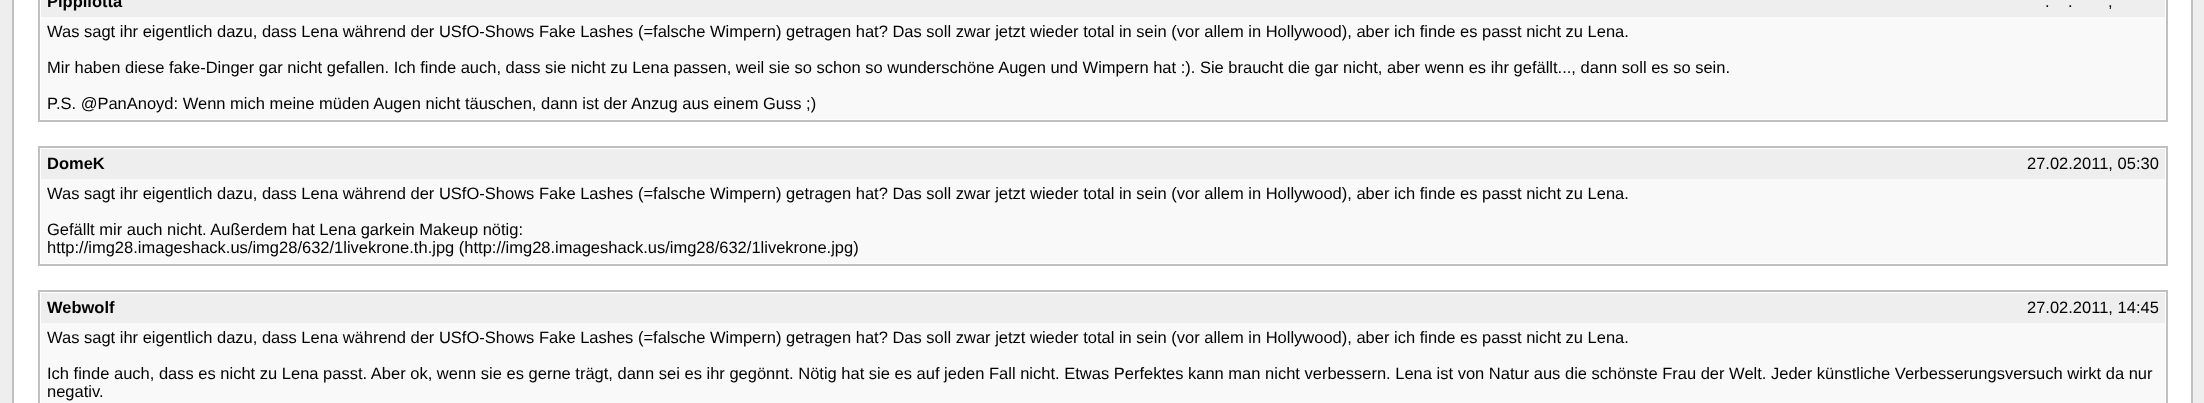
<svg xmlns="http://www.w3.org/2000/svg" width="2204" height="403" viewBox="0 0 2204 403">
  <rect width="100%" height="100%" fill="#eeeeee"/>
  <rect x="13" y="-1" width="2179" height="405" fill="#ffffff" stroke="#c0c0c0" stroke-width="2"/>
  <rect x="39" y="-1" width="2128" height="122" fill="none" stroke="#c0c0c0" stroke-width="2"/>
  <rect x="41" y="0" width="2124" height="17" fill="#eeeeee"/>
  <text x="47" y="7" font-family="Liberation Sans" font-size="16.5" font-weight="bold" fill="#000000">Pippilotta</text>
  <text x="2045" y="7" font-family="Liberation Sans" font-size="16.5" fill="#000000">.</text>
  <text x="2068" y="7" font-family="Liberation Sans" font-size="16.5" fill="#000000">.</text>
  <text x="2108" y="7" font-family="Liberation Sans" font-size="16.5" fill="#000000">,</text>
  <rect x="41" y="17" width="2124" height="102" fill="#f9f9f9"/>
  <text x="47" y="37" font-family="Liberation Sans" font-size="16.5" fill="#000000">Was sagt ihr eigentlich dazu, dass Lena während der USfO-Shows Fake Lashes (=falsche Wimpern) getragen hat? Das soll zwar jetzt wieder total in sein (vor allem in Hollywood), aber ich finde es passt nicht zu Lena.</text>
  <text x="47" y="73" font-family="Liberation Sans" font-size="16.5" fill="#000000">Mir haben diese fake-Dinger gar nicht gefallen. Ich finde auch, dass sie nicht zu Lena passen, weil sie so schon so wunderschöne Augen und Wimpern hat :). Sie braucht die gar nicht, aber wenn es ihr gefällt..., dann soll es so sein.</text>
  <text x="47" y="109" font-family="Liberation Sans" font-size="16.5" fill="#000000">P.S. @PanAnoyd: Wenn mich meine müden Augen nicht täuschen, dann ist der Anzug aus einem Guss ;)</text>
  <rect x="39" y="147" width="2128" height="118" fill="none" stroke="#c0c0c0" stroke-width="2"/>
  <rect x="41" y="149" width="2124" height="30" fill="#eeeeee"/>
  <text x="47" y="169" font-family="Liberation Sans" font-size="16.5" font-weight="bold" fill="#000000">DomeK</text>
  <text x="2027" y="169" font-family="Liberation Sans" font-size="16.5" fill="#000000">27.02.2011, 05:30</text>
  <rect x="41" y="179" width="2124" height="84" fill="#f9f9f9"/>
  <text x="47" y="199" font-family="Liberation Sans" font-size="16.5" fill="#000000">Was sagt ihr eigentlich dazu, dass Lena während der USfO-Shows Fake Lashes (=falsche Wimpern) getragen hat? Das soll zwar jetzt wieder total in sein (vor allem in Hollywood), aber ich finde es passt nicht zu Lena.</text>
  <text x="47" y="235" font-family="Liberation Sans" font-size="16.5" fill="#000000">Gefällt mir auch nicht. Außerdem hat Lena garkein Makeup nötig:</text>
  <text x="47" y="253" font-family="Liberation Sans" font-size="16.5" fill="#000000">http://img28.imageshack.us/img28/632/1livekrone.th.jpg (http://img28.imageshack.us/img28/632/1livekrone.jpg)</text>
  <rect x="39" y="291" width="2128" height="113" fill="none" stroke="#c0c0c0" stroke-width="2"/>
  <rect x="41" y="293" width="2124" height="30" fill="#eeeeee"/>
  <text x="47" y="313" font-family="Liberation Sans" font-size="16.5" font-weight="bold" fill="#000000">Webwolf</text>
  <text x="2027" y="313" font-family="Liberation Sans" font-size="16.5" fill="#000000">27.02.2011, 14:45</text>
  <rect x="41" y="323" width="2124" height="80" fill="#f9f9f9"/>
  <text x="47" y="343" font-family="Liberation Sans" font-size="16.5" fill="#000000">Was sagt ihr eigentlich dazu, dass Lena während der USfO-Shows Fake Lashes (=falsche Wimpern) getragen hat? Das soll zwar jetzt wieder total in sein (vor allem in Hollywood), aber ich finde es passt nicht zu Lena.</text>
  <text x="47" y="379" font-family="Liberation Sans" font-size="16.5" fill="#000000">Ich finde auch, dass es nicht zu Lena passt. Aber ok, wenn sie es gerne trägt, dann sei es ihr gegönnt. Nötig hat sie es auf jeden Fall nicht. Etwas Perfektes kann man nicht verbessern. Lena ist von Natur aus die schönste Frau der Welt. Jeder künstliche Verbesserungsversuch wirkt da nur</text>
  <text x="47" y="397" font-family="Liberation Sans" font-size="16.5" fill="#000000">negativ.</text>
</svg>
